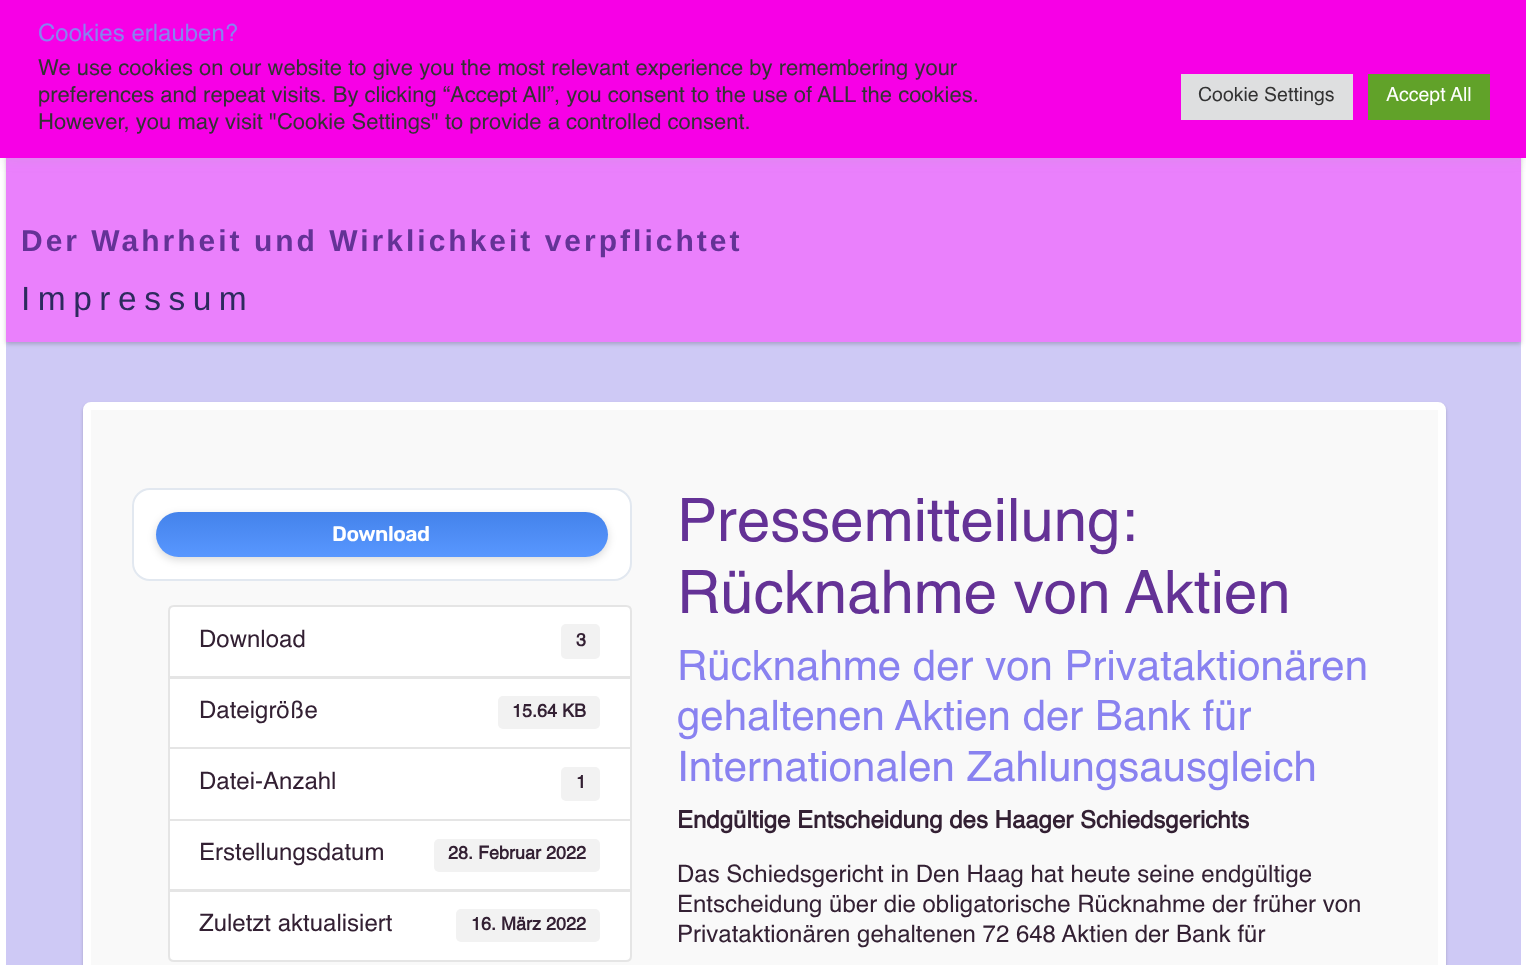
<svg xmlns="http://www.w3.org/2000/svg" width="1526" height="965" viewBox="0 0 1526 965">
  <defs>
    <filter id="blur1" x="-50%" y="-200%" width="200%" height="500%"><feGaussianBlur stdDeviation="2"/></filter>
    <filter id="blur2" x="-50%" y="-200%" width="200%" height="500%"><feGaussianBlur stdDeviation="7.5"/></filter>
    <filter id="blur3" x="-50%" y="-200%" width="200%" height="500%"><feGaussianBlur stdDeviation="1.5"/></filter>
    <filter id="blur4" x="-50%" y="-200%" width="200%" height="500%"><feGaussianBlur stdDeviation="4.5"/></filter>
    <linearGradient id="g1" gradientUnits="userSpaceOnUse" x1="382" y1="512" x2="382" y2="557"><stop offset="0" stop-color="#000000" stop-opacity="0.08"/><stop offset="1" stop-color="#ffffff" stop-opacity="0.08"/></linearGradient>
  </defs>
  <rect width="100%" height="100%" fill="#cec9f5"/>
  <rect x="3" y="3" width="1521" height="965" fill="none" stroke="#ffffff" stroke-width="6"/>
  <rect x="6" y="8" width="1515" height="336" fill="#000000" fill-opacity="0.2" filter="url(#blur1)"/>
  <rect x="6" y="158" width="1515" height="184" fill="#ea80fc"/>
  <rect x="0" y="-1" width="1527" height="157" fill="#acabab" fill-opacity="0.3" filter="url(#blur2)"/>
  <rect x="0" y="0" width="1526" height="158" fill="#f700e6"/>
  <text x="38" y="41" font-family="Helvetica" font-size="24" fill="#8982f0">Cookies erlauben?</text>
  <text x="38" y="75" font-family="Helvetica" font-size="22" fill="#333333">We use cookies on our website to give you the most relevant experience by remembering your</text>
  <text x="38" y="102" font-family="Helvetica" font-size="22" fill="#333333">preferences and repeat visits. By clicking “Accept All”, you consent to the use of ALL the cookies.</text>
  <text x="38" y="129" font-family="Helvetica" font-size="22" fill="#333333">However, you may visit "Cookie Settings" to provide a controlled consent.</text>
  <rect x="1181" y="74" width="172" height="46" fill="#dedfe0"/>
  <text x="1198" y="101" font-family="Helvetica" font-size="19.5" fill="#333333">Cookie Settings</text>
  <rect x="1368" y="74" width="122" height="46" fill="#61a229"/>
  <text x="1386" y="101" font-family="Helvetica" font-size="19.5" fill="#ffffff">Accept All</text>
  <text x="21" y="251" font-family="Liberation Sans" font-size="30" font-weight="bold" letter-spacing="3" fill="#643296">Der Wahrheit und Wirklichkeit verpflichtet</text>
  <text x="21" y="310" font-family="Liberation Sans" font-size="33.5" letter-spacing="7.5" fill="#2d2a5e">Impressum</text>
  <rect x="83" y="404" width="1363" height="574" rx="8" fill="#000000" fill-opacity="0.2" filter="url(#blur3)"/>
  <rect x="87" y="406" width="1355" height="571" rx="4" fill="#f9f9f9" stroke="#ffffff" stroke-width="8"/>
  <rect x="133" y="489" width="498" height="91" rx="17" fill="#ffffff" stroke="#e2e8f0" stroke-width="2"/>
  <rect x="156" y="515" width="452" height="45" rx="22.5" fill="#000000" fill-opacity="0.15" filter="url(#blur4)"/>
  <rect x="156" y="512" width="452" height="45" rx="22.5" fill="#4a8eff"/>
  <rect x="156" y="512" width="452" height="45" rx="22.5" fill="url(#g1)"/>
  <text x="332" y="541" font-family="Rubik" font-size="21" font-weight="600" letter-spacing="-0.5" fill="#ffffff">Download</text>
  <path d="M174 606H626C629 606 631 608 631 611V677H169V611C169 608 171 606 174 606Z" fill="#ffffff" stroke="#e5e5e5" stroke-width="2"/>
  <text x="199" y="647" font-family="Helvetica" font-size="24" fill="#332033">Download</text>
  <rect x="561" y="624" width="39" height="35" rx="5" fill="#f2f2f2"/>
  <text x="576" y="646" font-family="Helvetica" font-size="18" font-weight="bold" fill="#332033">3</text>
  <rect x="169" y="678" width="462" height="70" fill="#ffffff" stroke="#e5e5e5" stroke-width="2"/>
  <text x="199" y="718" font-family="Helvetica" font-size="24" fill="#332033">Dateigröße</text>
  <rect x="498" y="696" width="102" height="33" rx="5" fill="#f2f2f2"/>
  <text x="512" y="717" font-family="Helvetica" font-size="18" font-weight="bold" fill="#332033">15.64 KB</text>
  <rect x="169" y="748" width="462" height="72" fill="#ffffff" stroke="#e5e5e5" stroke-width="2"/>
  <text x="199" y="789" font-family="Helvetica" font-size="24" fill="#332033">Datei-Anzahl</text>
  <rect x="561" y="767" width="39" height="34" rx="5" fill="#f2f2f2"/>
  <text x="576" y="788" font-family="Helvetica" font-size="18" font-weight="bold" fill="#332033">1</text>
  <rect x="169" y="820" width="462" height="70" fill="#ffffff" stroke="#e5e5e5" stroke-width="2"/>
  <text x="199" y="860" font-family="Helvetica" font-size="24" fill="#332033">Erstellungsdatum</text>
  <rect x="434" y="839" width="166" height="33" rx="5" fill="#f2f2f2"/>
  <text x="448" y="859" font-family="Helvetica" font-size="18" font-weight="bold" fill="#332033">28. Februar 2022</text>
  <path d="M169 891H631V956C631 959 629 961 626 961H174C171 961 169 959 169 956Z" fill="#ffffff" stroke="#e5e5e5" stroke-width="2"/>
  <text x="199" y="931" font-family="Helvetica" font-size="24" fill="#332033">Zuletzt aktualisiert</text>
  <rect x="456" y="909" width="144" height="33" rx="5" fill="#f2f2f2"/>
  <text x="471" y="930" font-family="Helvetica" font-size="18" font-weight="bold" fill="#332033">16. März 2022</text>
  <text x="677" y="541" font-family="Helvetica" font-size="60" fill="#643296">Pressemitteilung:</text>
  <text x="677" y="613" font-family="Helvetica" font-size="60" fill="#643296">Rücknahme von Aktien</text>
  <text x="677" y="680" font-family="Helvetica" font-size="42" fill="#8982f0">Rücknahme der von Privataktionären</text>
  <text x="677" y="730" font-family="Helvetica" font-size="42" fill="#8982f0">gehaltenen Aktien der Bank für</text>
  <text x="677" y="781" font-family="Helvetica" font-size="42" fill="#8982f0">Internationalen Zahlungsausgleich</text>
  <text x="677" y="828" font-family="Helvetica" font-size="24" font-weight="bold" fill="#332033">Endgültige Entscheidung des Haager Schiedsgerichts</text>
  <text x="677" y="882" font-family="Helvetica" font-size="24" fill="#332033">Das Schiedsgericht in Den Haag hat heute seine endgültige</text>
  <text x="677" y="912" font-family="Helvetica" font-size="24" fill="#332033">Entscheidung über die obligatorische Rücknahme der früher von</text>
  <text x="677" y="942" font-family="Helvetica" font-size="24" fill="#332033">Privataktionären gehaltenen 72 648 Aktien der Bank für</text>
</svg>
